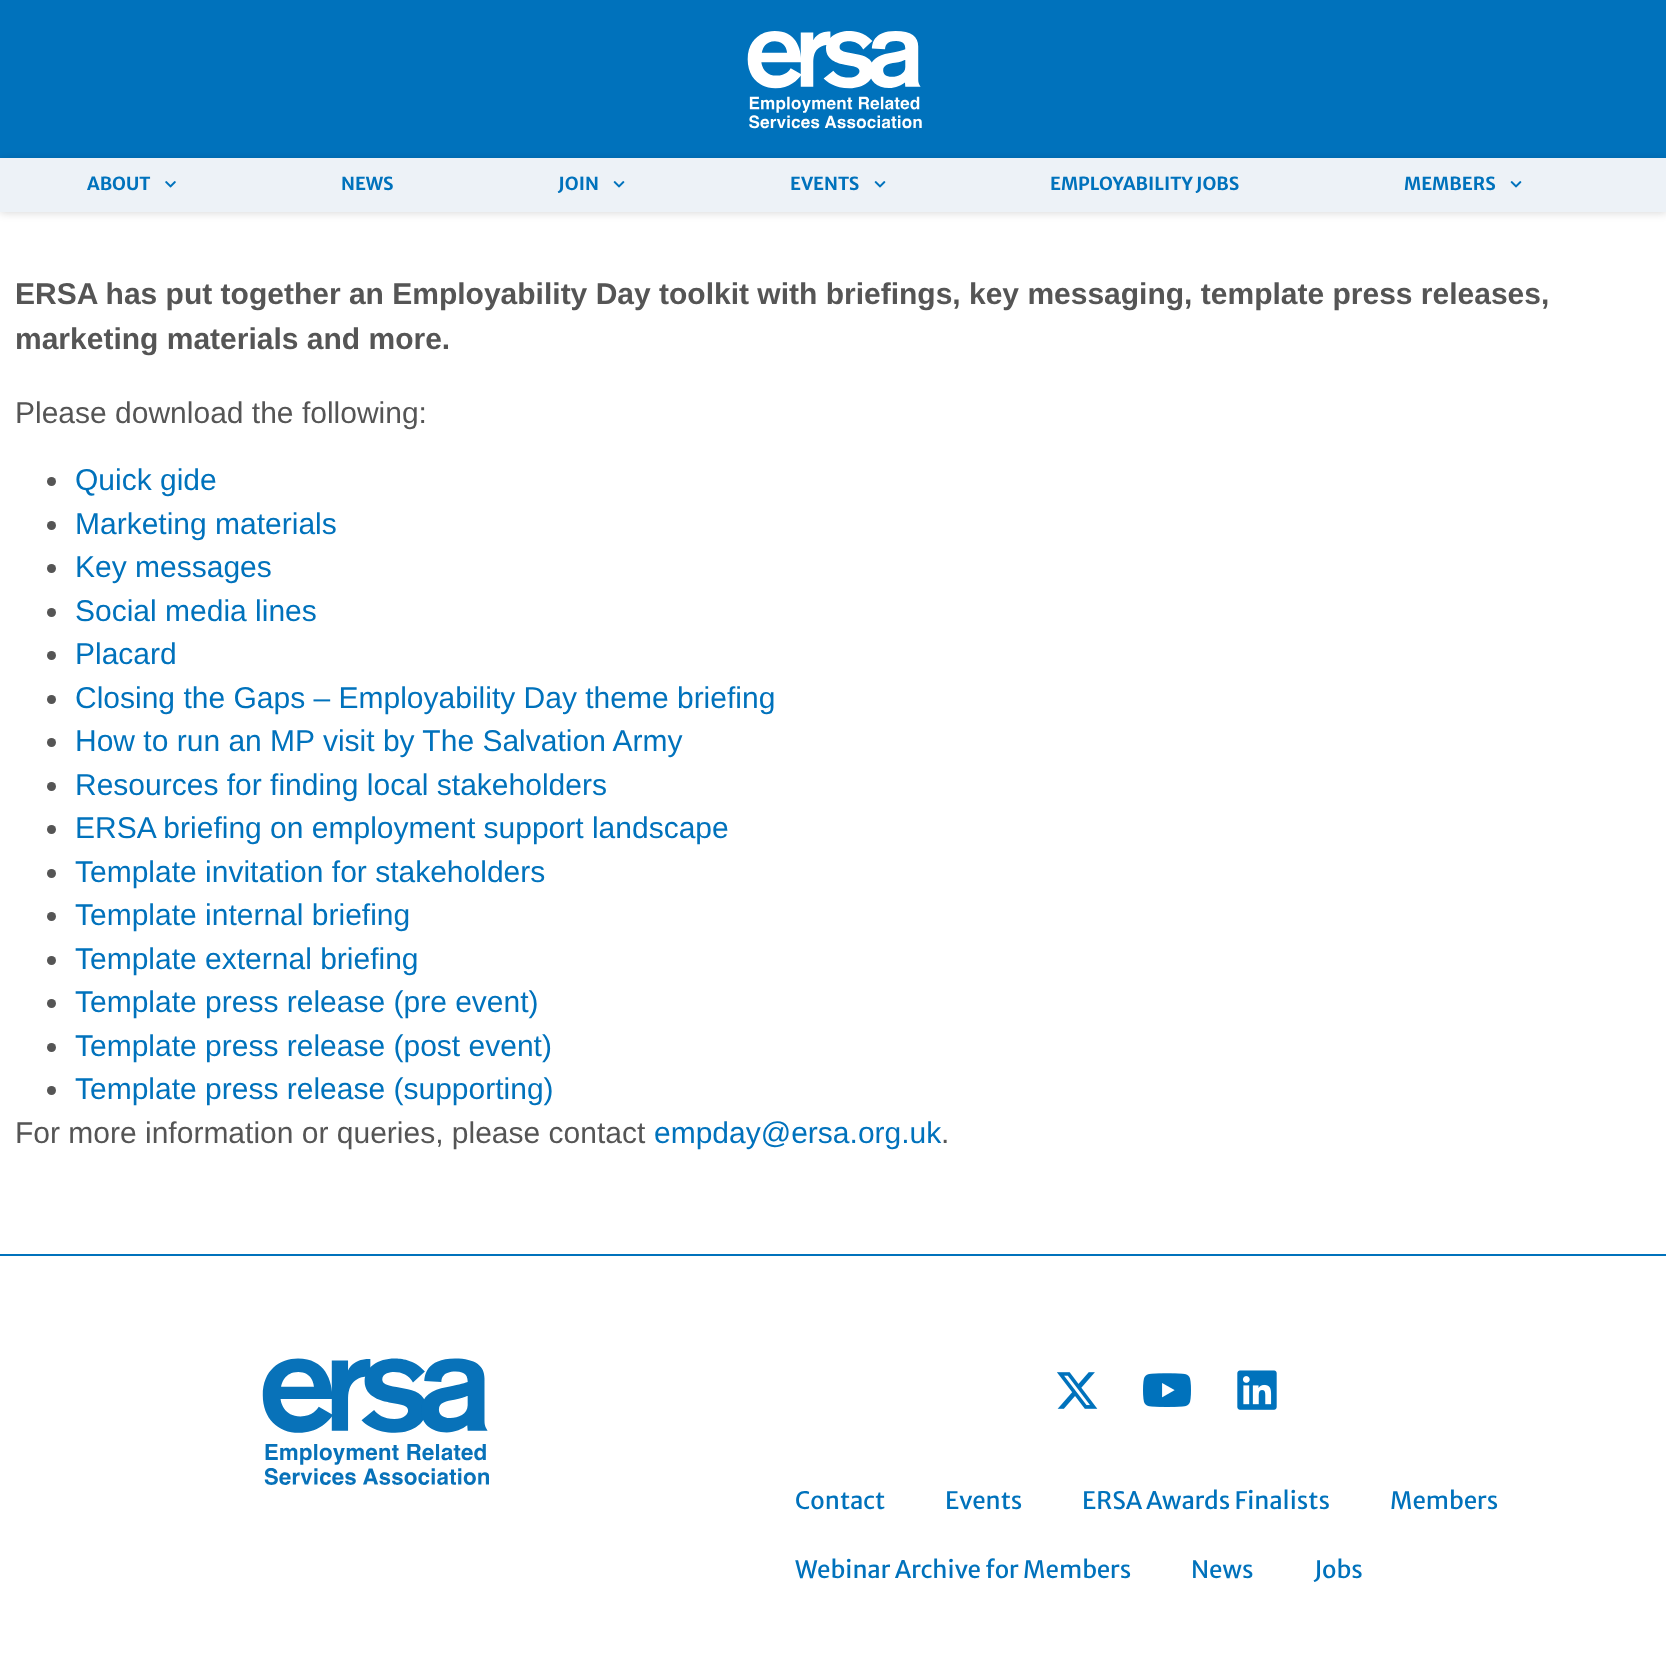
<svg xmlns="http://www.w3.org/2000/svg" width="1666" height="1659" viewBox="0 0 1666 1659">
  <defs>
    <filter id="blur1" x="-50%" y="-200%" width="200%" height="500%"><feGaussianBlur stdDeviation="4.5"/></filter>
  </defs>
  <rect width="100%" height="100%" fill="#ffffff"/>
  <rect x="0" y="0" width="1666" height="158" fill="#0072bc"/>
  <image x="747" y="31" width="175" height="98" href="img1.png"/>
  <rect x="0" y="159" width="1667" height="54" fill="#000000" fill-opacity="0.15" filter="url(#blur1)"/>
  <rect x="0" y="158" width="1666" height="54" fill="#edf2f7"/>
  <text x="87" y="190" font-family="Merriweather Sans" font-size="18" font-weight="bold" fill="#0072bc">ABOUT</text>
  <image x="165" y="181" width="11" height="7" href="img2.png"/>
  <text x="341" y="190" font-family="Merriweather Sans" font-size="18" font-weight="bold" fill="#0072bc">NEWS</text>
  <text x="558" y="190" font-family="Merriweather Sans" font-size="18" font-weight="bold" fill="#0072bc">JOIN</text>
  <image x="613" y="181" width="12" height="7" href="img3.png"/>
  <text x="790" y="190" font-family="Merriweather Sans" font-size="18" font-weight="bold" fill="#0072bc">EVENTS</text>
  <image x="874" y="181" width="12" height="7" href="img3.png"/>
  <text x="1050" y="190" font-family="Merriweather Sans" font-size="18" font-weight="bold" fill="#0072bc">EMPLOYABILITY JOBS</text>
  <text x="1404" y="190" font-family="Merriweather Sans" font-size="18" font-weight="bold" fill="#0072bc">MEMBERS</text>
  <image x="1510" y="181" width="12" height="7" href="img3.png"/>
  <text x="15" y="304" font-family="Liberation Sans" font-size="30" font-weight="bold" fill="#555555">ERSA has put together an Employability Day toolkit with briefings, key messaging, template press releases,</text>
  <text x="15" y="349" font-family="Liberation Sans" font-size="30" font-weight="bold" fill="#555555">marketing materials and more.</text>
  <text x="15" y="423" font-family="Liberation Sans" font-size="30" fill="#555555">Please download the following:</text>
  <circle cx="51.5" cy="481.5" r="4.5" fill="#555555"/>
  <text x="75" y="490" font-family="Liberation Sans" font-size="30" fill="#0072bc">Quick gide</text>
  <circle cx="51.5" cy="525.5" r="4.5" fill="#555555"/>
  <text x="75" y="534" font-family="Liberation Sans" font-size="30" fill="#0072bc">Marketing materials</text>
  <circle cx="51.5" cy="568.5" r="4.5" fill="#555555"/>
  <text x="75" y="577" font-family="Liberation Sans" font-size="30" fill="#0072bc">Key messages</text>
  <circle cx="51.5" cy="612.5" r="4.5" fill="#555555"/>
  <text x="75" y="621" font-family="Liberation Sans" font-size="30" fill="#0072bc">Social media lines</text>
  <circle cx="51.5" cy="655.5" r="4.5" fill="#555555"/>
  <text x="75" y="664" font-family="Liberation Sans" font-size="30" fill="#0072bc">Placard</text>
  <circle cx="51.5" cy="699.5" r="4.5" fill="#555555"/>
  <text x="75" y="708" font-family="Liberation Sans" font-size="30" fill="#0072bc">Closing the Gaps – Employability Day theme briefing</text>
  <circle cx="51.5" cy="742.5" r="4.5" fill="#555555"/>
  <text x="75" y="751" font-family="Liberation Sans" font-size="30" fill="#0072bc">How to run an MP visit by The Salvation Army</text>
  <circle cx="51.5" cy="786.5" r="4.5" fill="#555555"/>
  <text x="75" y="795" font-family="Liberation Sans" font-size="30" fill="#0072bc">Resources for finding local stakeholders</text>
  <circle cx="51.5" cy="829.5" r="4.5" fill="#555555"/>
  <text x="75" y="838" font-family="Liberation Sans" font-size="30" fill="#0072bc">ERSA briefing on employment support landscape</text>
  <circle cx="51.5" cy="873.5" r="4.5" fill="#555555"/>
  <text x="75" y="882" font-family="Liberation Sans" font-size="30" fill="#0072bc">Template invitation for stakeholders</text>
  <circle cx="51.5" cy="916.5" r="4.5" fill="#555555"/>
  <text x="75" y="925" font-family="Liberation Sans" font-size="30" fill="#0072bc">Template internal briefing</text>
  <circle cx="51.5" cy="960.5" r="4.5" fill="#555555"/>
  <text x="75" y="969" font-family="Liberation Sans" font-size="30" fill="#0072bc">Template external briefing</text>
  <circle cx="51.5" cy="1003.5" r="4.5" fill="#555555"/>
  <text x="75" y="1012" font-family="Liberation Sans" font-size="30" fill="#0072bc">Template press release (pre event)</text>
  <circle cx="51.5" cy="1047.5" r="4.5" fill="#555555"/>
  <text x="75" y="1056" font-family="Liberation Sans" font-size="30" fill="#0072bc">Template press release (post event)</text>
  <circle cx="51.5" cy="1090.5" r="4.5" fill="#555555"/>
  <text x="75" y="1099" font-family="Liberation Sans" font-size="30" fill="#0072bc">Template press release (supporting)</text>
  <text x="15" y="1143" font-family="Liberation Sans" font-size="30" fill="#555555">For more information or queries, please contact</text>
  <text x="654" y="1143" font-family="Liberation Sans" font-size="30" fill="#0072bc">empday@ersa.org.uk</text>
  <text x="941" y="1143" font-family="Liberation Sans" font-size="30" fill="#555555">.</text>
  <rect x="0" y="1254" width="1666" height="2" fill="#0072bc"/>
  <image x="262" y="1358" width="227" height="127" href="img4.png"/>
  <image x="1057" y="1372" width="41" height="37" href="img5.png"/>
  <image x="1143" y="1373" width="48" height="34" href="img6.png"/>
  <image x="1237" y="1370" width="40" height="40" href="img7.png"/>
  <text x="795" y="1509" font-family="Merriweather Sans" font-size="24" fill="#0072bc">Contact</text>
  <text x="945" y="1509" font-family="Merriweather Sans" font-size="24" fill="#0072bc">Events</text>
  <text x="1082" y="1509" font-family="Merriweather Sans" font-size="24" fill="#0072bc">ERSA Awards Finalists</text>
  <text x="1390" y="1509" font-family="Merriweather Sans" font-size="24" fill="#0072bc">Members</text>
  <text x="795" y="1578" font-family="Merriweather Sans" font-size="24" fill="#0072bc">Webinar Archive for Members</text>
  <text x="1191" y="1578" font-family="Merriweather Sans" font-size="24" fill="#0072bc">News</text>
  <text x="1314" y="1578" font-family="Merriweather Sans" font-size="24" fill="#0072bc">Jobs</text>
</svg>
